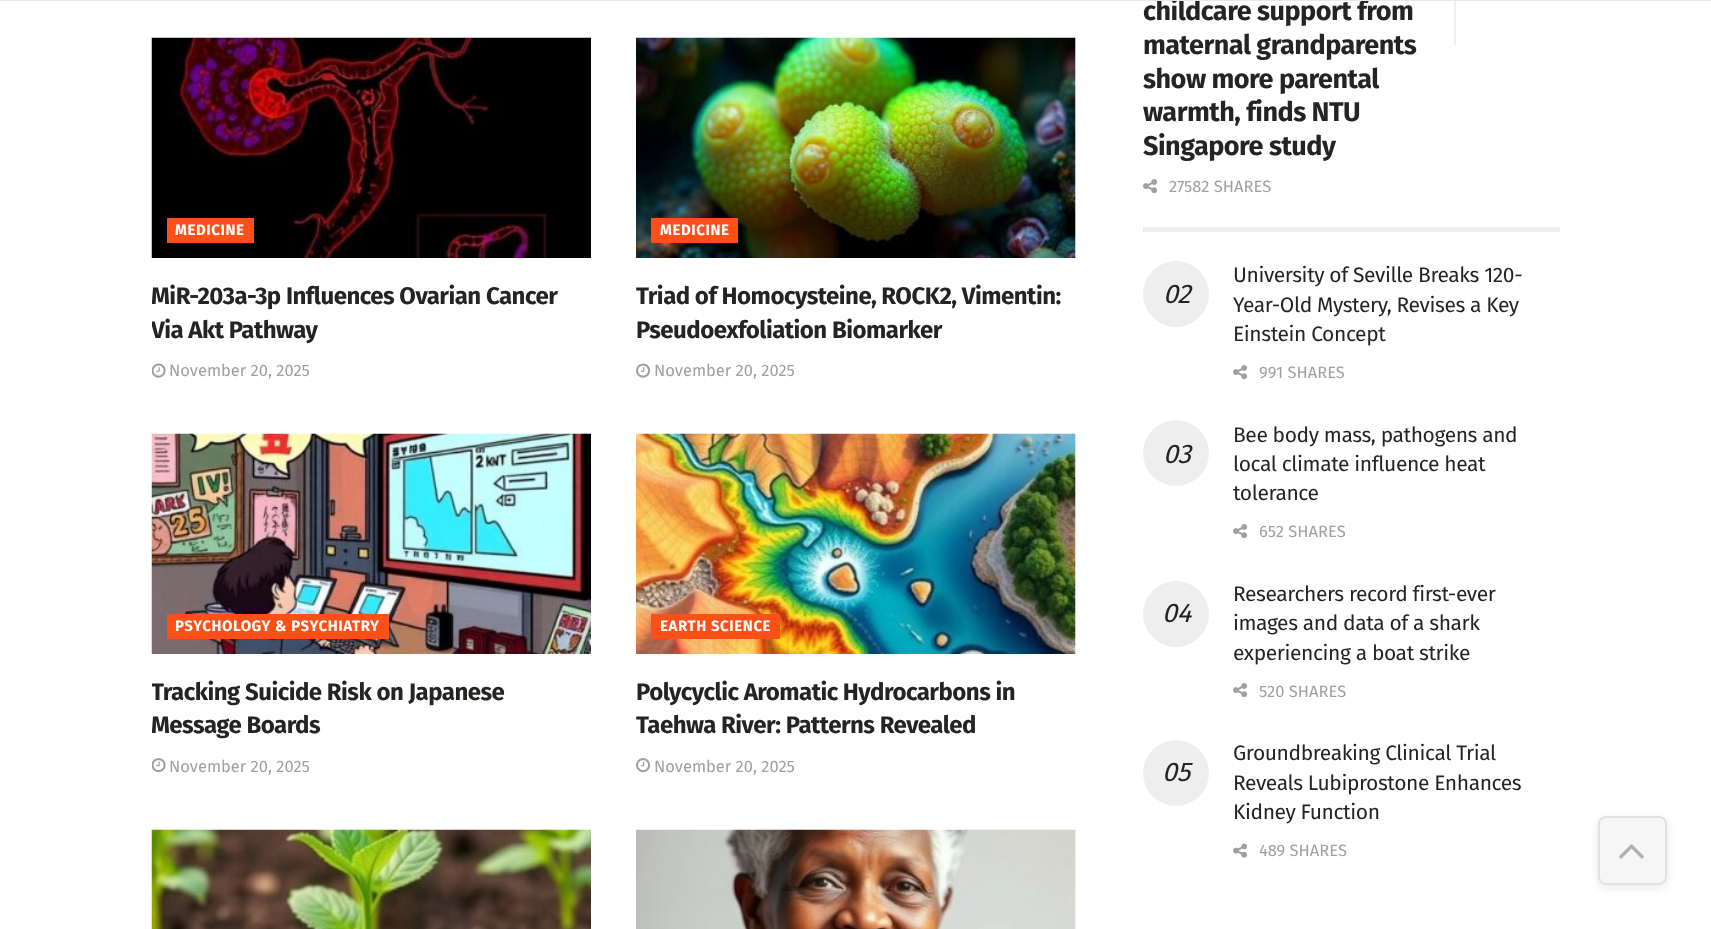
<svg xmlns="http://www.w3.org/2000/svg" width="1711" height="929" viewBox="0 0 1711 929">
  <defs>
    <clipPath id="clip1"><rect x="152" y="0" width="924" height="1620"/></clipPath>
    <clipPath id="clip2"><path d="M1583 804H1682V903H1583ZM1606 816H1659C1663.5 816 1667 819.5 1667 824V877C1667 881.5 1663.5 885 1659 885H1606C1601.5 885 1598 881.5 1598 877V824C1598 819.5 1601.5 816 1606 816Z" clip-rule="evenodd"/></clipPath>
    <filter id="blur1" x="-50%" y="-200%" width="200%" height="500%"><feGaussianBlur stdDeviation="4.5"/></filter>
  </defs>
  <rect width="100%" height="100%" fill="#ffffff"/>
  <text x="1143" y="20" font-family="Fira Sans" font-size="27" font-weight="bold" letter-spacing="-0.5" fill="#252422">childcare support from</text>
  <rect x="1454" y="0" width="2" height="45" fill="#eeeeee"/>
  <rect x="0" y="0" width="1711" height="1" fill="#e8e8e8"/>
  <image x="151" y="37" width="440" height="221" href="img1.png"/>
  <rect x="167" y="218" width="87" height="25" fill="#fd4f18"/>
  <text x="175" y="235" font-family="Fira Sans" font-size="15" font-weight="bold" letter-spacing="0.6" fill="#ffffff">MEDICINE</text>
  <g clip-path="url(#clip1)">
    <text x="151" y="304" font-family="Fira Sans" font-size="24" font-weight="bold" letter-spacing="-0.5" fill="#252422">MiR-203a-3p Influences Ovarian Cancer</text>
    <text x="151" y="338" font-family="Fira Sans" font-size="24" font-weight="bold" letter-spacing="-0.5" fill="#252422">Via Akt Pathway</text>
  </g>
  <image x="152" y="363" width="14" height="15" href="img2.png"/>
  <text x="169" y="376" font-family="Fira Sans" font-size="16.5" fill="#a0a0a0">November 20, 2025</text>
  <rect x="1075" y="38" width="1" height="220" fill="#f7f7f7"/>
  <image x="636" y="37" width="440" height="221" href="img3.png"/>
  <rect x="651" y="218" width="87" height="25" fill="#fd4f18"/>
  <text x="660" y="235" font-family="Fira Sans" font-size="15" font-weight="bold" letter-spacing="0.6" fill="#ffffff">MEDICINE</text>
  <text x="636" y="304" font-family="Fira Sans" font-size="24" font-weight="bold" letter-spacing="-0.5" fill="#252422">Triad of Homocysteine, ROCK2, Vimentin:</text>
  <text x="636" y="338" font-family="Fira Sans" font-size="24" font-weight="bold" letter-spacing="-0.5" fill="#252422">Pseudoexfoliation Biomarker</text>
  <image x="636" y="363" width="15" height="15" href="img4.png"/>
  <text x="654" y="376" font-family="Fira Sans" font-size="16.5" fill="#a0a0a0">November 20, 2025</text>
  <image x="151" y="433" width="440" height="221" href="img5.png"/>
  <rect x="167" y="614" width="222" height="25" fill="#fd4f18"/>
  <text x="175" y="631" font-family="Fira Sans" font-size="15" font-weight="bold" letter-spacing="0.6" fill="#ffffff">PSYCHOLOGY &amp; PSYCHIATRY</text>
  <g clip-path="url(#clip1)">
    <text x="151" y="700" font-family="Fira Sans" font-size="24" font-weight="bold" letter-spacing="-0.5" fill="#252422">Tracking Suicide Risk on Japanese</text>
    <text x="151" y="733" font-family="Fira Sans" font-size="24" font-weight="bold" letter-spacing="-0.5" fill="#252422">Message Boards</text>
  </g>
  <image x="152" y="758" width="14" height="15" href="img6.png"/>
  <text x="169" y="772" font-family="Fira Sans" font-size="16.5" fill="#a0a0a0">November 20, 2025</text>
  <rect x="1075" y="434" width="1" height="220" fill="#f7f7f7"/>
  <image x="636" y="433" width="440" height="221" href="img7.png"/>
  <rect x="651" y="614" width="129" height="25" fill="#fd4f18"/>
  <text x="660" y="631" font-family="Fira Sans" font-size="15" font-weight="bold" letter-spacing="0.6" fill="#ffffff">EARTH SCIENCE</text>
  <text x="636" y="700" font-family="Fira Sans" font-size="24" font-weight="bold" letter-spacing="-0.5" fill="#252422">Polycyclic Aromatic Hydrocarbons in</text>
  <text x="636" y="733" font-family="Fira Sans" font-size="24" font-weight="bold" letter-spacing="-0.5" fill="#252422">Taehwa River: Patterns Revealed</text>
  <image x="636" y="758" width="15" height="15" href="img8.png"/>
  <text x="654" y="772" font-family="Fira Sans" font-size="16.5" fill="#a0a0a0">November 20, 2025</text>
  <image x="151" y="829" width="440" height="100" href="img9.png"/>
  <rect x="1075" y="830" width="1" height="99" fill="#f7f7f7"/>
  <image x="636" y="829" width="440" height="100" href="img10.png"/>
  <rect x="1143" y="227" width="417" height="5" fill="#eeeeee"/>
  <text x="1143" y="54" font-family="Fira Sans" font-size="27" font-weight="bold" letter-spacing="-0.5" fill="#252422">maternal grandparents</text>
  <text x="1143" y="88" font-family="Fira Sans" font-size="27" font-weight="bold" letter-spacing="-0.5" fill="#252422">show more parental</text>
  <text x="1143" y="121" font-family="Fira Sans" font-size="27" font-weight="bold" letter-spacing="-0.5" fill="#252422">warmth, finds NTU</text>
  <text x="1143" y="155" font-family="Fira Sans" font-size="27" font-weight="bold" letter-spacing="-0.5" fill="#252422">Singapore study</text>
  <image x="1143" y="179" width="15" height="15" href="img11.png"/>
  <text x="1169" y="192" font-family="Fira Sans" font-size="16.5" fill="#a0a0a0">27582 SHARES</text>
  <text x="1233" y="282" font-family="Fira Sans" font-size="21" letter-spacing="-0.4" fill="#252422">University of Seville Breaks 120-</text>
  <circle cx="1176" cy="294" r="33" fill="#eeeeee"/>
  <text x="1163" y="303" font-family="Fira Sans" font-size="27" font-style="italic" letter-spacing="-0.4" fill="#252422">02</text>
  <text x="1233" y="312" font-family="Fira Sans" font-size="21" letter-spacing="-0.4" fill="#252422">Year-Old Mystery, Revises a Key</text>
  <text x="1233" y="341" font-family="Fira Sans" font-size="21" letter-spacing="-0.4" fill="#252422">Einstein Concept</text>
  <image x="1233" y="365" width="15" height="15" href="img11.png"/>
  <text x="1259" y="378" font-family="Fira Sans" font-size="16.5" fill="#a0a0a0">991 SHARES</text>
  <text x="1233" y="442" font-family="Fira Sans" font-size="21" letter-spacing="-0.4" fill="#252422">Bee body mass, pathogens and</text>
  <circle cx="1176" cy="453" r="33" fill="#eeeeee"/>
  <text x="1163" y="463" font-family="Fira Sans" font-size="27" font-style="italic" letter-spacing="-0.4" fill="#252422">03</text>
  <text x="1233" y="471" font-family="Fira Sans" font-size="21" letter-spacing="-0.4" fill="#252422">local climate influence heat</text>
  <text x="1233" y="500" font-family="Fira Sans" font-size="21" letter-spacing="-0.4" fill="#252422">tolerance</text>
  <image x="1233" y="524" width="15" height="15" href="img11.png"/>
  <text x="1259" y="537" font-family="Fira Sans" font-size="16.5" fill="#a0a0a0">652 SHARES</text>
  <text x="1233" y="601" font-family="Fira Sans" font-size="21" letter-spacing="-0.4" fill="#252422">Researchers record first-ever</text>
  <circle cx="1176" cy="614" r="33" fill="#eeeeee"/>
  <text x="1162" y="622" font-family="Fira Sans" font-size="27" font-style="italic" letter-spacing="-0.4" fill="#252422">04</text>
  <text x="1233" y="630" font-family="Fira Sans" font-size="21" letter-spacing="-0.4" fill="#252422">images and data of a shark</text>
  <text x="1233" y="660" font-family="Fira Sans" font-size="21" letter-spacing="-0.4" fill="#252422">experiencing a boat strike</text>
  <image x="1233" y="683" width="15" height="15" href="img11.png"/>
  <text x="1259" y="697" font-family="Fira Sans" font-size="16.5" fill="#a0a0a0">520 SHARES</text>
  <text x="1233" y="760" font-family="Fira Sans" font-size="21" letter-spacing="-0.4" fill="#252422">Groundbreaking Clinical Trial</text>
  <circle cx="1176" cy="773" r="33" fill="#eeeeee"/>
  <text x="1162" y="781" font-family="Fira Sans" font-size="27" font-style="italic" letter-spacing="-0.4" fill="#252422">05</text>
  <text x="1233" y="790" font-family="Fira Sans" font-size="21" letter-spacing="-0.4" fill="#252422">Reveals Lubiprostone Enhances</text>
  <text x="1233" y="819" font-family="Fira Sans" font-size="21" letter-spacing="-0.4" fill="#252422">Kidney Function</text>
  <image x="1233" y="843" width="15" height="15" href="img12.png"/>
  <text x="1259" y="856" font-family="Fira Sans" font-size="16.5" fill="#a0a0a0">489 SHARES</text>
  <g clip-path="url(#clip2)">
    <rect x="1598" y="819" width="69" height="69" rx="8" fill="#333333" fill-opacity="0.1" filter="url(#blur1)"/>
  </g>
  <rect x="1598" y="816" width="69" height="69" rx="8" fill="#c4c4c4" fill-opacity="0.15"/>
  <rect x="1599" y="817" width="67" height="67" rx="7" fill="none" stroke="#333333" stroke-opacity="0.11" stroke-width="2"/>
  <image x="1619" y="844" width="25" height="15" href="img13.png"/>
</svg>
